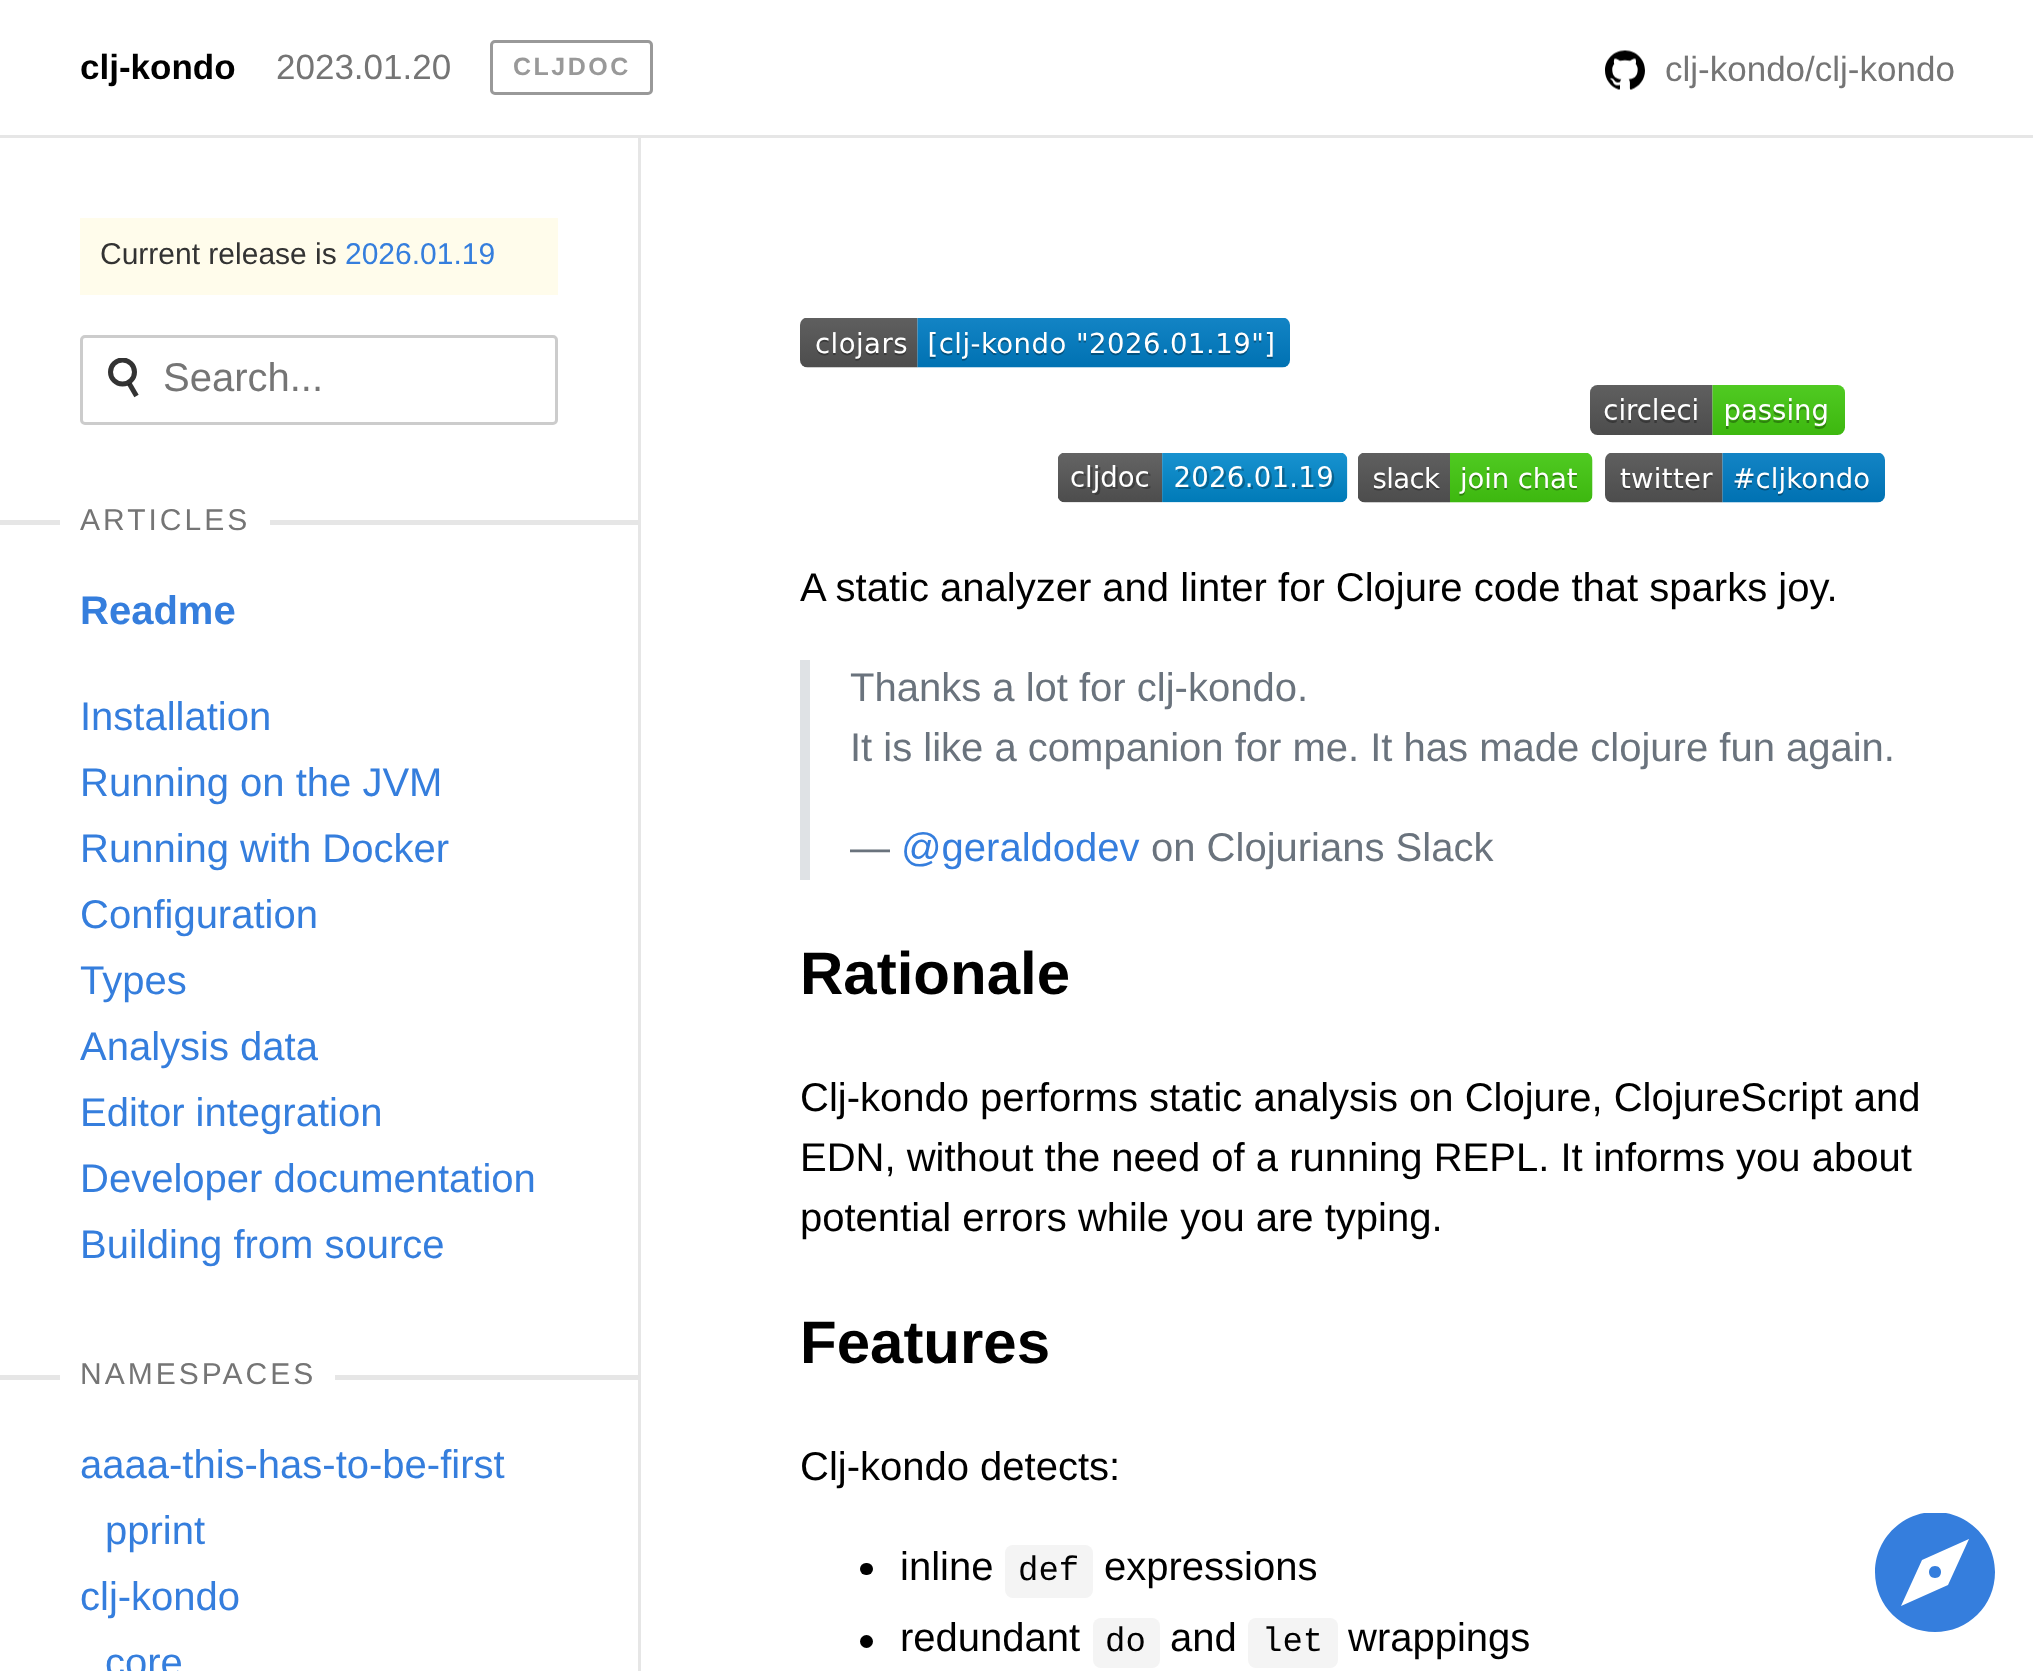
<svg xmlns="http://www.w3.org/2000/svg" width="2033" height="1671" viewBox="0 0 2033 1671">
  <defs>
    <clipPath id="clip1"><rect x="103" y="358" width="40" height="40"/></clipPath>
    <clipPath id="clip2"><rect x="1875" y="1513" width="120" height="120"/></clipPath>
  </defs>
  <rect width="100%" height="100%" fill="#ffffff"/>
  <rect x="0" y="135" width="2033" height="3" fill="#e6e6e6"/>
  <text x="80" y="79" font-family="Liberation Sans" font-size="35" font-weight="bold" fill="#000000">clj-kondo</text>
  <text x="276" y="79" font-family="Liberation Sans" font-size="35" fill="#757575">2023.01.20</text>
  <rect x="491.5" y="41.5" width="160" height="52" rx="3.5" fill="none" stroke="#999999" stroke-width="3"/>
  <text x="513" y="75" font-family="Liberation Sans" font-size="25" font-weight="bold" letter-spacing="2.5" fill="#999999">CLJDOC</text>
  <image x="1605" y="50" width="40" height="40" href="img1.png"/>
  <text x="1665" y="81" font-family="Liberation Sans" font-size="35" fill="#757575">clj-kondo/clj-kondo</text>
  <rect x="638" y="138" width="3" height="1533" fill="#e6e6e6"/>
  <rect x="80" y="218" width="478" height="77" fill="#fffceb"/>
  <text x="100" y="264" font-family="Liberation Sans" font-size="30" fill="#333333">Current release is</text>
  <text x="345" y="264" font-family="Liberation Sans" font-size="30" fill="#357edd">2026.01.19</text>
  <rect x="81.5" y="336.5" width="475" height="87" rx="3.5" fill="none" stroke="#cccccc" stroke-width="3"/>
  <g clip-path="url(#clip1)">
    <circle cx="122.5" cy="372" r="12" fill="none" stroke="#333333" stroke-width="5"/>
  </g>
  <path d="M129.5 384L136.5 396" fill="none" stroke="#000000" stroke-opacity="0.8" stroke-width="5"/>
  <text x="163" y="391" font-family="Liberation Sans" font-size="40" fill="#757575">Search...</text>
  <rect x="0" y="520" width="638" height="5" fill="#e6e6e6"/>
  <rect x="60" y="520" width="210" height="5" fill="#ffffff"/>
  <text x="80" y="530" font-family="Liberation Sans" font-size="30" letter-spacing="3" fill="#757575">ARTICLES</text>
  <text x="80" y="624" font-family="Liberation Sans" font-size="40" font-weight="bold" fill="#357edd">Readme</text>
  <text x="80" y="730" font-family="Liberation Sans" font-size="40" fill="#357edd">Installation</text>
  <text x="80" y="796" font-family="Liberation Sans" font-size="40" fill="#357edd">Running on the JVM</text>
  <text x="80" y="862" font-family="Liberation Sans" font-size="40" fill="#357edd">Running with Docker</text>
  <text x="80" y="928" font-family="Liberation Sans" font-size="40" fill="#357edd">Configuration</text>
  <text x="80" y="994" font-family="Liberation Sans" font-size="40" fill="#357edd">Types</text>
  <text x="80" y="1060" font-family="Liberation Sans" font-size="40" fill="#357edd">Analysis data</text>
  <text x="80" y="1126" font-family="Liberation Sans" font-size="40" fill="#357edd">Editor integration</text>
  <text x="80" y="1192" font-family="Liberation Sans" font-size="40" fill="#357edd">Developer documentation</text>
  <text x="80" y="1258" font-family="Liberation Sans" font-size="40" fill="#357edd">Building from source</text>
  <rect x="0" y="1375" width="638" height="5" fill="#e6e6e6"/>
  <rect x="60" y="1375" width="275" height="5" fill="#ffffff"/>
  <text x="80" y="1384" font-family="Liberation Sans" font-size="30" letter-spacing="3" fill="#757575">NAMESPACES</text>
  <text x="80" y="1478" font-family="Liberation Sans" font-size="40" fill="#357edd">aaaa-this-has-to-be-first</text>
  <text x="105" y="1544" font-family="Liberation Sans" font-size="40" fill="#357edd">pprint</text>
  <text x="80" y="1610" font-family="Liberation Sans" font-size="40" fill="#357edd">clj-kondo</text>
  <text x="105" y="1676" font-family="Liberation Sans" font-size="40" fill="#357edd">core</text>
  <image x="800" y="318" width="490" height="50" href="img2.png"/>
  <image x="1590" y="385" width="255" height="50" href="img3.png"/>
  <image x="1058" y="453" width="290" height="50" href="img4.png"/>
  <image x="1358" y="453" width="235" height="50" href="img5.png"/>
  <image x="1605" y="453" width="280" height="50" href="img6.png"/>
  <text x="800" y="601" font-family="Liberation Sans" font-size="40" fill="#000000">A static analyzer and linter for Clojure code that sparks joy.</text>
  <rect x="800" y="660" width="10" height="220" fill="#dfe2e5"/>
  <text x="850" y="701" font-family="Liberation Sans" font-size="40" fill="#6a737d">Thanks a lot for clj-kondo.</text>
  <text x="850" y="761" font-family="Liberation Sans" font-size="40" fill="#6a737d">It is like a companion for me. It has made clojure fun again.</text>
  <text x="850" y="861" font-family="Liberation Sans" font-size="40" fill="#6a737d">—</text>
  <text x="901" y="861" font-family="Liberation Sans" font-size="40" fill="#357edd">@geraldodev</text>
  <text x="1151" y="861" font-family="Liberation Sans" font-size="40" fill="#6a737d">on Clojurians Slack</text>
  <text x="800" y="994" font-family="Liberation Sans" font-size="60" font-weight="bold" fill="#000000">Rationale</text>
  <text x="800" y="1111" font-family="Liberation Sans" font-size="40" fill="#000000">Clj-kondo performs static analysis on Clojure, ClojureScript and</text>
  <text x="800" y="1171" font-family="Liberation Sans" font-size="40" fill="#000000">EDN, without the need of a running REPL. It informs you about</text>
  <text x="800" y="1231" font-family="Liberation Sans" font-size="40" fill="#000000">potential errors while you are typing.</text>
  <text x="800" y="1363" font-family="Liberation Sans" font-size="60" font-weight="bold" fill="#000000">Features</text>
  <text x="800" y="1480" font-family="Liberation Sans" font-size="40" fill="#000000">Clj-kondo detects:</text>
  <rect x="860" y="1563" width="13" height="12" rx="6" fill="#000000"/>
  <text x="900" y="1580" font-family="Liberation Sans" font-size="40" fill="#000000">inline</text>
  <rect x="1005" y="1545" width="88" height="53" rx="8" fill="#f4f4f4"/>
  <text x="1018" y="1580" font-family="Liberation Mono" font-size="34" fill="#000000">def</text>
  <text x="1104" y="1580" font-family="Liberation Sans" font-size="40" fill="#000000">expressions</text>
  <circle cx="866.5" cy="1641.5" r="6.5" fill="#000000"/>
  <text x="900" y="1651" font-family="Liberation Sans" font-size="40" fill="#000000">redundant</text>
  <rect x="1093" y="1618" width="67" height="50" rx="8" fill="#f4f4f4"/>
  <text x="1105" y="1651" font-family="Liberation Mono" font-size="34" fill="#000000">do</text>
  <text x="1170" y="1651" font-family="Liberation Sans" font-size="40" fill="#000000">and</text>
  <rect x="1248" y="1618" width="90" height="50" rx="8" fill="#f4f4f4"/>
  <text x="1262" y="1651" font-family="Liberation Mono" font-size="34" fill="#000000">let</text>
  <text x="1348" y="1651" font-family="Liberation Sans" font-size="40" fill="#000000">wrappings</text>
  <g clip-path="url(#clip2)">
    <path d="M1935 1632C1902 1632 1875 1606 1875 1572C1875 1539 1902 1512 1935 1512C1968 1512 1995 1539 1995 1572C1995 1606 1968 1632 1935 1632ZM1922 1560L1901 1606L1948 1585L1969 1539ZM1935 1578C1927 1578 1927 1566 1935 1566C1943 1566 1943 1578 1935 1578Z" fill="#357edd"/>
  </g>
</svg>
